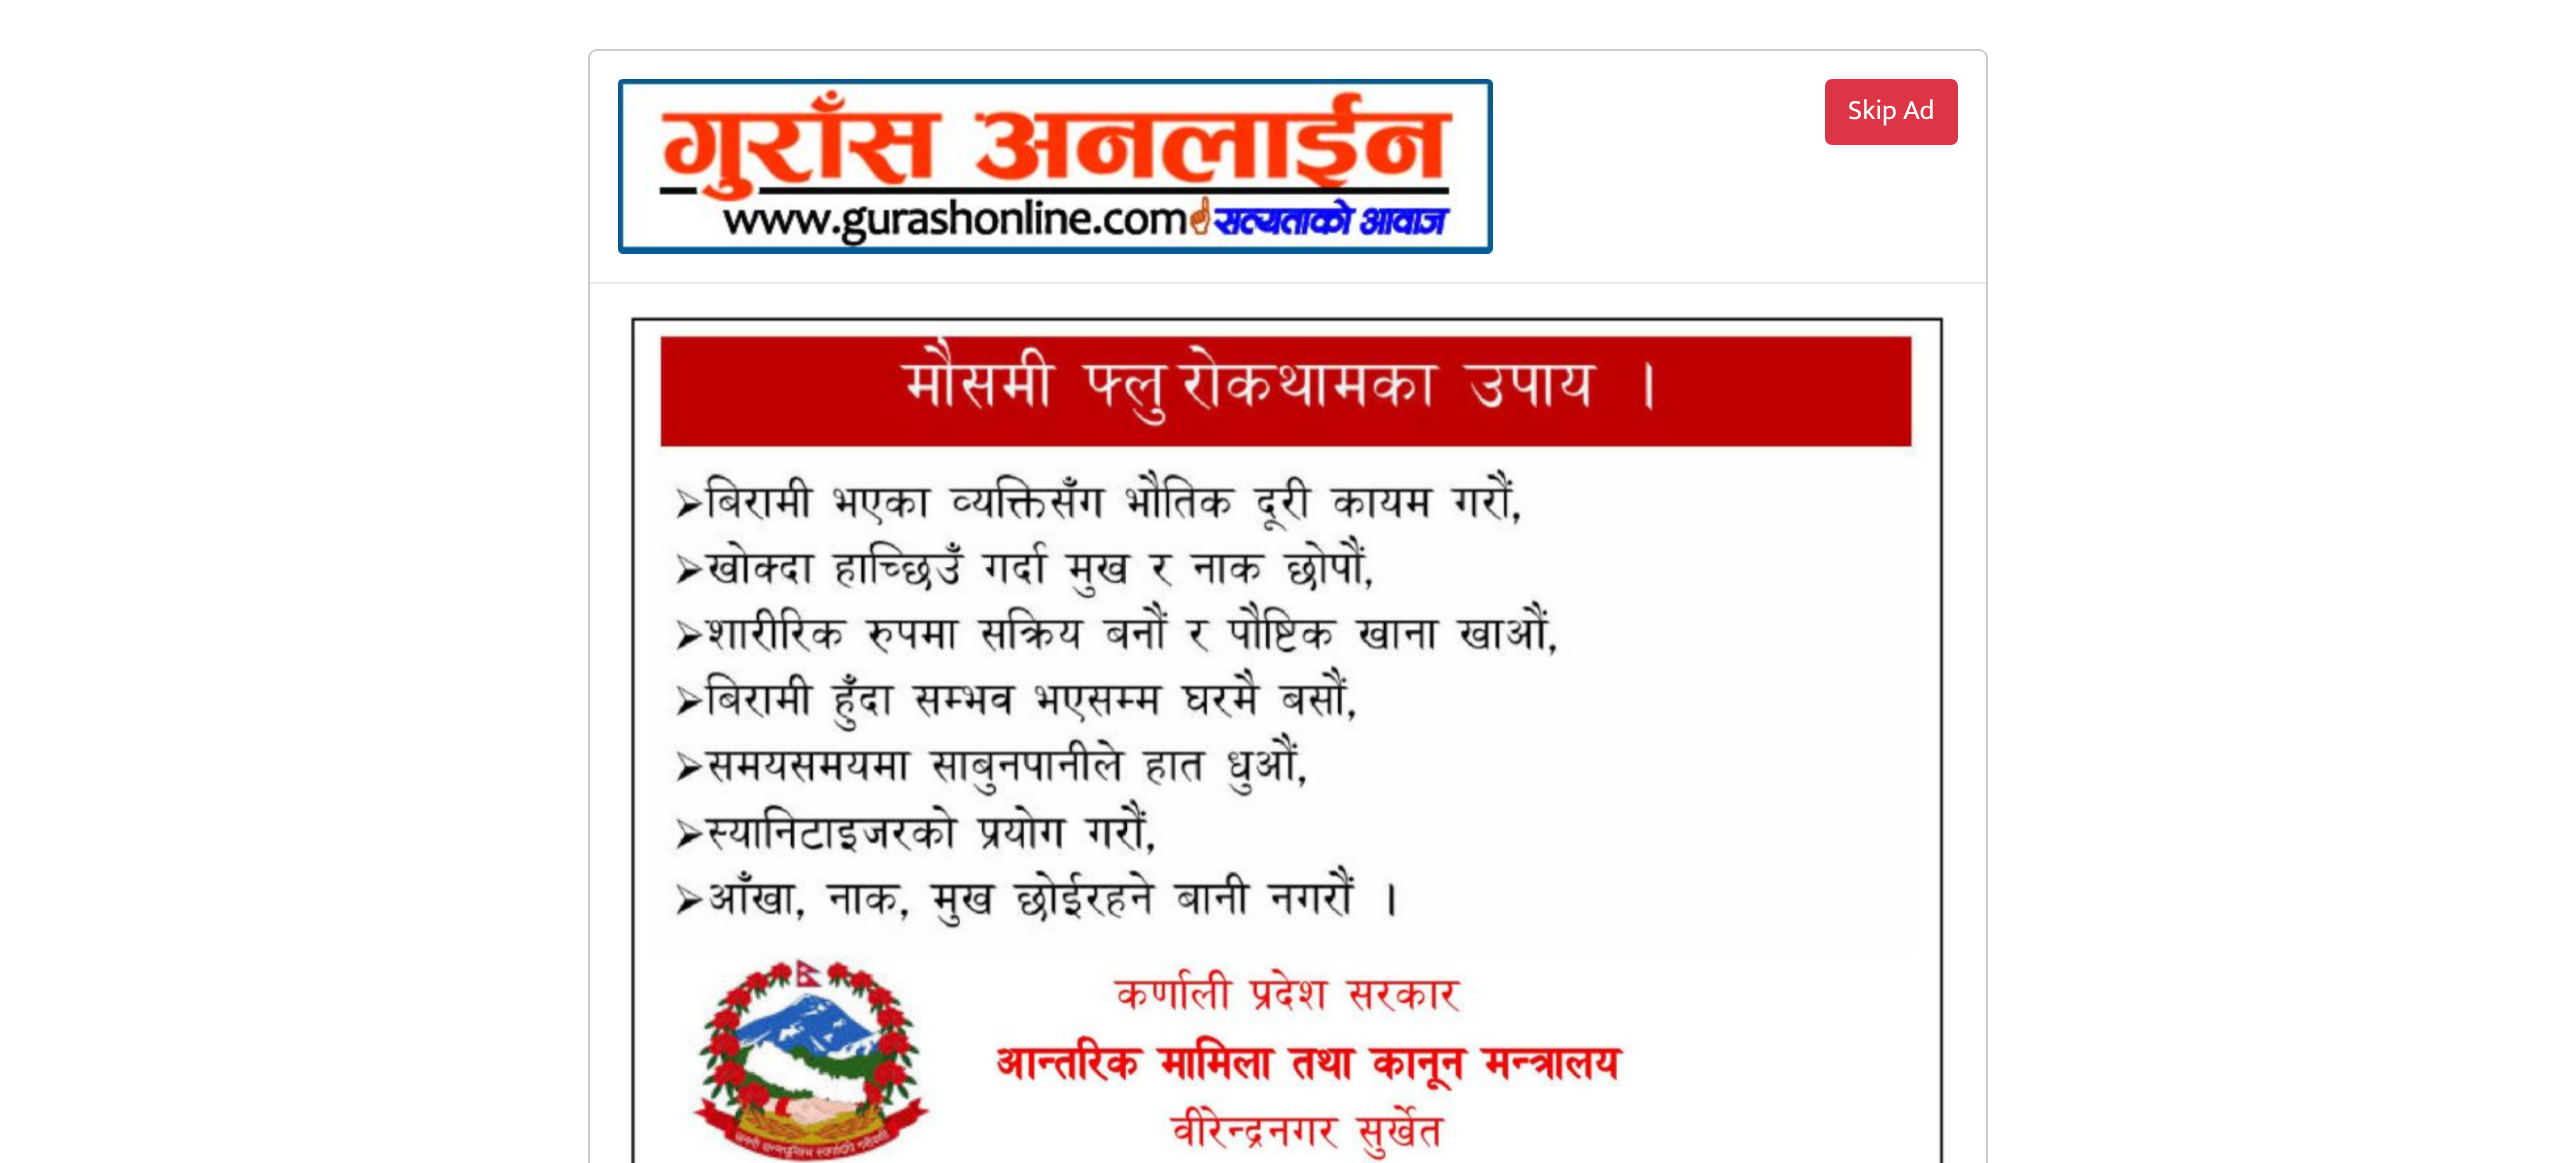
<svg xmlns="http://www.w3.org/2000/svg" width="2574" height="1163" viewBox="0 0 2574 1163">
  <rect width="100%" height="100%" fill="#ffffff"/>
  <rect x="589" y="50" width="1398" height="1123" rx="8" fill="none" stroke="#cccccc" stroke-width="2"/>
  <rect x="590" y="282" width="1396" height="2" fill="#e9ecef"/>
  <image x="618" y="79" width="875" height="175" href="img1.png"/>
  <rect x="1826" y="80" width="131" height="64" rx="6" fill="#dc3545" stroke="#dc3545" stroke-width="2"/>
  <text x="1848" y="119" font-family="Mukta" font-size="28" fill="#ffffff">Skip Ad</text>
  <image x="628" y="312" width="1320" height="851" href="img2.png"/>
</svg>
